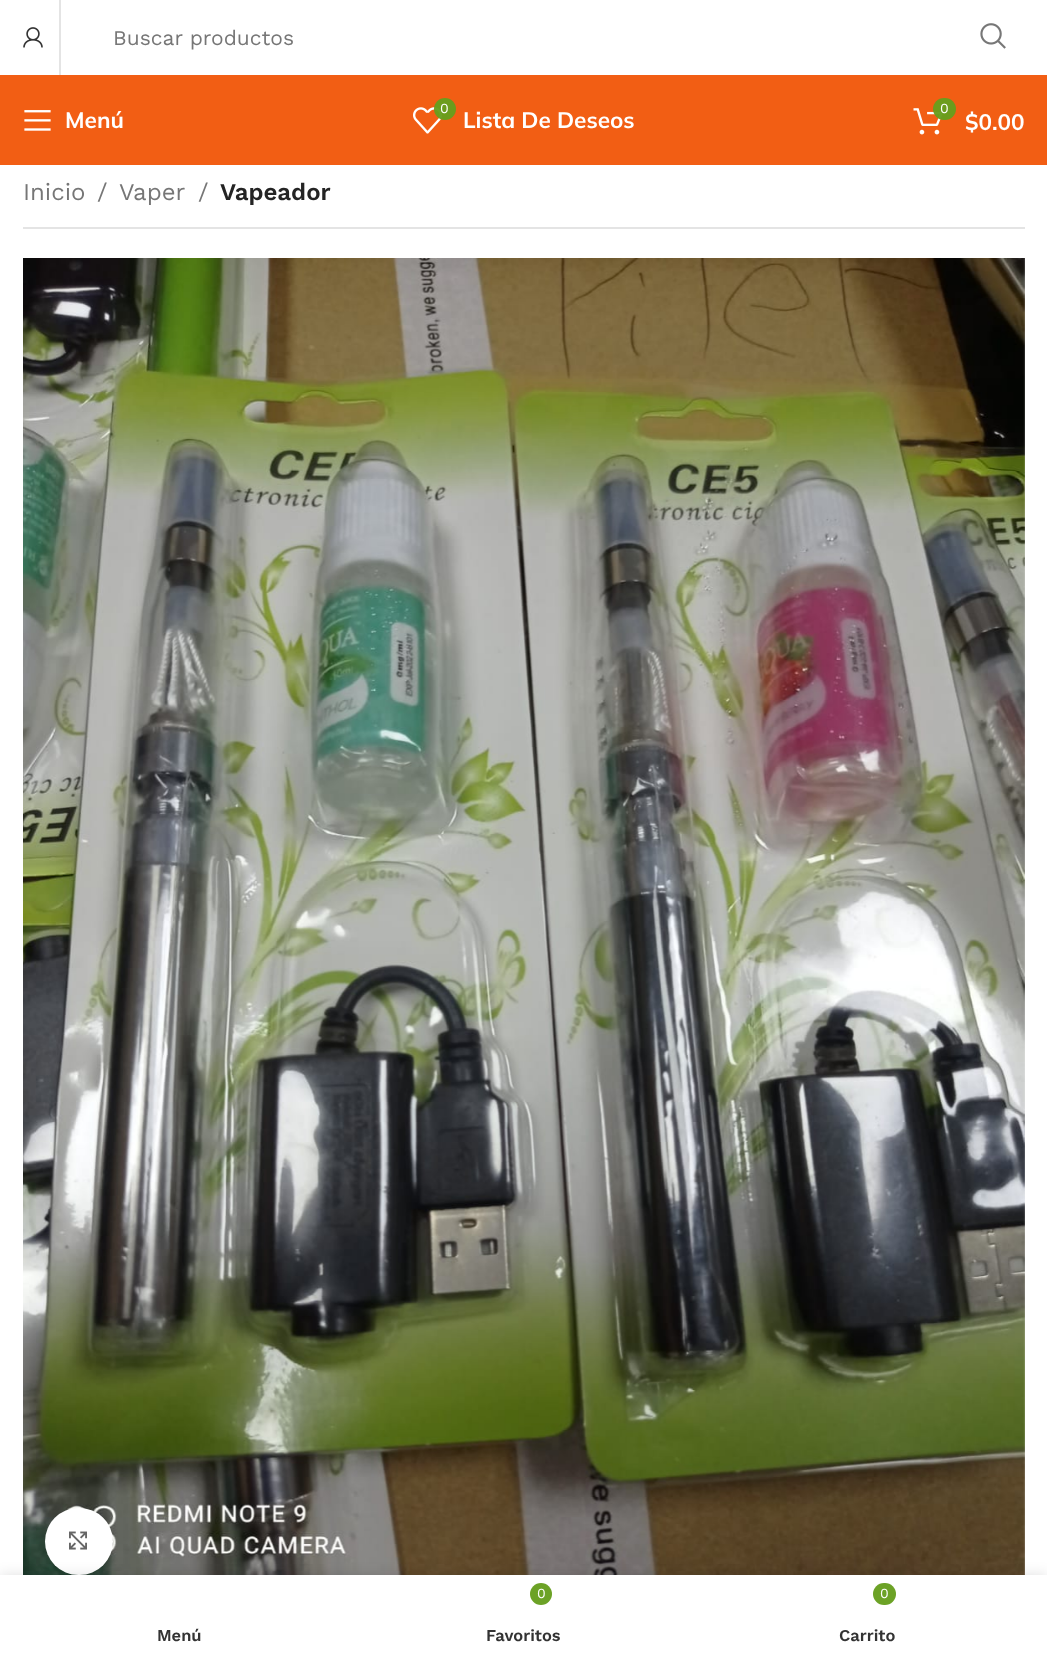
<svg xmlns="http://www.w3.org/2000/svg" width="1047" height="1657" viewBox="0 0 1047 1657">
  <defs>
    <filter id="blur1" x="-50%" y="-200%" width="200%" height="500%"><feGaussianBlur stdDeviation="4"/></filter>
    <filter id="blur2" x="-50%" y="-200%" width="200%" height="500%"><feGaussianBlur stdDeviation="7"/></filter>
  </defs>
  <rect width="100%" height="100%" fill="#ffffff"/>
  <image x="23" y="27" width="20" height="21" href="img1.png"/>
  <rect x="59" y="0" width="2" height="75" fill="#e4e4e4"/>
  <text x="113" y="45" font-family="Work Sans" font-size="21" fill="#767676">Buscar productos</text>
  <image x="980" y="23" width="26" height="26" href="img2.png"/>
  <rect x="0" y="75" width="1047" height="90" fill="#f25e14"/>
  <image x="24" y="110" width="27" height="21" href="img3.png"/>
  <text x="65" y="128" font-family="Mulish" font-size="22.5" font-weight="bold" fill="#ffffff">Menú</text>
  <image x="413" y="107" width="29" height="27" href="img4.png"/>
  <circle cx="445" cy="109" r="11" fill="#669e1d" fill-opacity="0.96"/>
  <text x="440" y="113" font-family="Work Sans" font-size="14" fill="#ffffff">0</text>
  <text x="463" y="128" font-family="Mulish" font-size="22.5" font-weight="bold" fill="#ffffff">Lista De Deseos</text>
  <image x="913" y="108" width="30" height="27" href="img5.png"/>
  <rect x="933" y="98" width="23" height="22" rx="11" fill="#669e1d" fill-opacity="0.96"/>
  <text x="940" y="113" font-family="Work Sans" font-size="14" fill="#ffffff">0</text>
  <text x="965" y="130" font-family="Mulish" font-size="22.5" font-weight="bold" fill="#ffffff">$0.00</text>
  <rect x="23" y="227" width="1002" height="2" fill="#e4e4e4"/>
  <text x="23" y="200" font-family="Work Sans" font-size="24" fill="#767676">Inicio</text>
  <text x="97" y="200" font-family="Work Sans" font-size="24" fill="#767676">/</text>
  <text x="119" y="200" font-family="Work Sans" font-size="24" fill="#767676">Vaper</text>
  <text x="198" y="200" font-family="Work Sans" font-size="24" fill="#767676">/</text>
  <text x="220" y="200" font-family="Work Sans" font-size="24" font-weight="600" fill="#242424">Vapeador</text>
  <image x="23" y="258" width="1002" height="1317" href="img6.png"/>
  <rect x="45" y="1508" width="68" height="67" rx="33.5" fill="#000000" fill-opacity="0.08" filter="url(#blur1)"/>
  <rect x="45" y="1508" width="68" height="67" rx="33.5" fill="#ffffff"/>
  <image x="69" y="1531" width="18" height="19" href="img7.png"/>
  <rect x="0" y="1575" width="1047" height="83" fill="#000000" fill-opacity="0.12" filter="url(#blur2)"/>
  <rect x="0" y="1575" width="1047" height="82" fill="#ffffff"/>
  <text x="157" y="1641" font-family="Work Sans" font-size="16.5" font-weight="600" fill="#333333">Menú</text>
  <circle cx="541" cy="1594" r="11" fill="#6ca226"/>
  <text x="537" y="1598" font-family="Work Sans" font-size="14" fill="#ffffff">0</text>
  <text x="486" y="1641" font-family="Work Sans" font-size="16.5" font-weight="600" fill="#333333">Favoritos</text>
  <rect x="873" y="1583" width="23" height="22" rx="11" fill="#6ca226"/>
  <text x="880" y="1598" font-family="Work Sans" font-size="14" fill="#ffffff">0</text>
  <text x="839" y="1641" font-family="Work Sans" font-size="16.5" font-weight="600" fill="#333333">Carrito</text>
</svg>
